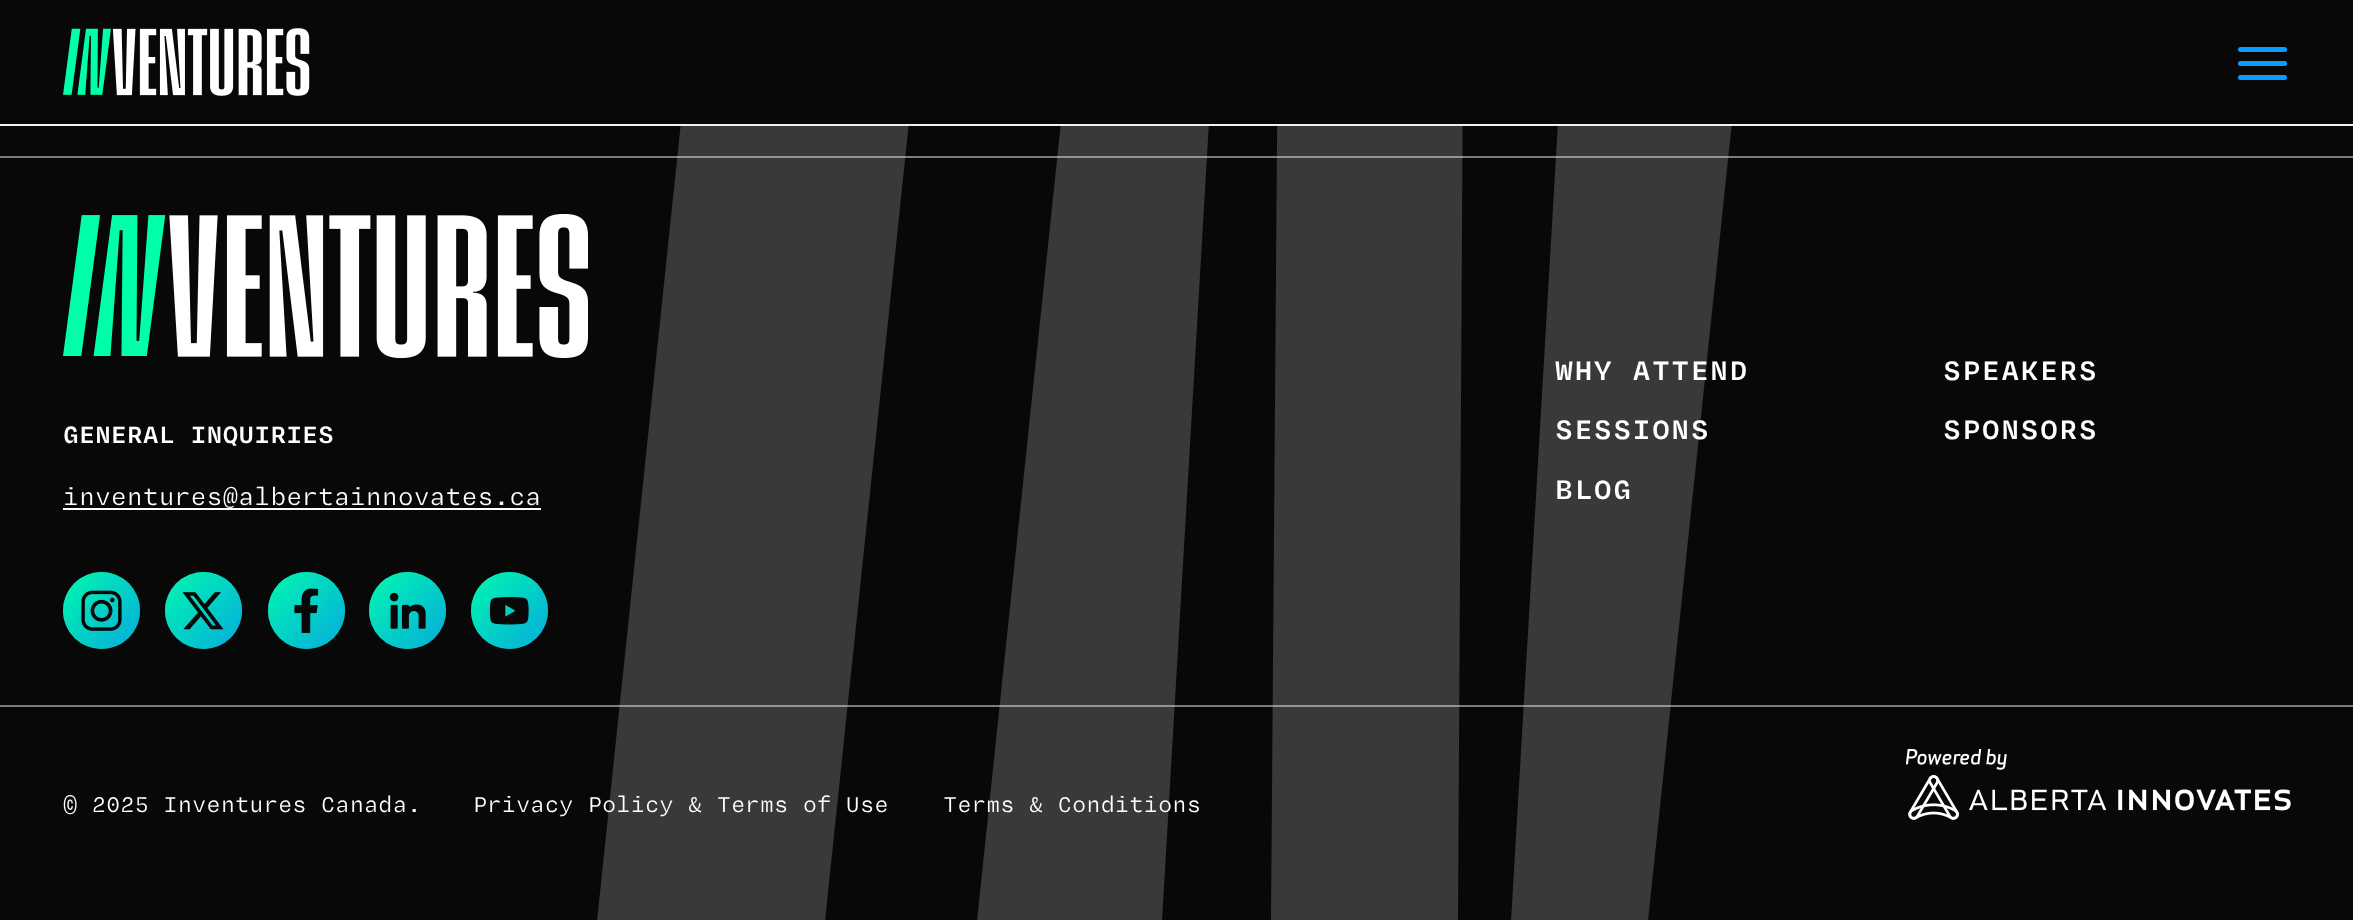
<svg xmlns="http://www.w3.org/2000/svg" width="2353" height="920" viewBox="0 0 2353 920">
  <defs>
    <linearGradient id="g1" gradientUnits="userSpaceOnUse" x1="156" y1="661" x2="57" y2="569"><stop offset="0" stop-color="#0970ff" stop-opacity="0.68"/><stop offset="1" stop-color="#00ffab" stop-opacity="0.73"/></linearGradient>
    <linearGradient id="g2" gradientUnits="userSpaceOnUse" x1="257" y1="661" x2="159" y2="569"><stop offset="0" stop-color="#0970ff" stop-opacity="0.68"/><stop offset="1" stop-color="#00ffab" stop-opacity="0.73"/></linearGradient>
    <linearGradient id="g3" gradientUnits="userSpaceOnUse" x1="360" y1="661" x2="262" y2="569"><stop offset="0" stop-color="#0970ff" stop-opacity="0.68"/><stop offset="1" stop-color="#00ffab" stop-opacity="0.73"/></linearGradient>
    <linearGradient id="g4" gradientUnits="userSpaceOnUse" x1="462" y1="661" x2="363" y2="569"><stop offset="0" stop-color="#0970ff" stop-opacity="0.68"/><stop offset="1" stop-color="#00ffab" stop-opacity="0.73"/></linearGradient>
    <linearGradient id="g5" gradientUnits="userSpaceOnUse" x1="563" y1="661" x2="465" y2="569"><stop offset="0" stop-color="#0970ff" stop-opacity="0.68"/><stop offset="1" stop-color="#00ffab" stop-opacity="0.73"/></linearGradient>
  </defs>
  <rect width="100%" height="100%" fill="#080808"/>
  <path d="M1223-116H1086L977 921H1162ZM1757-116L1648 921H1511L1572-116ZM1464-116H1279L1271 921H1458ZM825 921L934-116H706L597 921Z" fill="#393939" fill-rule="evenodd"/>
  <rect x="680" y="0" width="1065" height="124" fill="#080808"/>
  <rect x="0" y="124" width="2353" height="2" fill="#f0f0f0"/>
  <image x="63" y="28" width="247" height="68" href="img1.png"/>
  <rect x="2238" y="47" width="49" height="5" rx="2.5" fill="#099dff"/>
  <rect x="2238" y="61" width="49" height="5" rx="2.5" fill="#099dff"/>
  <rect x="2238" y="75" width="49" height="5" rx="2.5" fill="#099dff"/>
  <rect x="0" y="156" width="2353" height="2" fill="#f0f0f0" fill-opacity="0.5"/>
  <image x="63" y="214" width="525" height="145" href="img2.png"/>
  <text x="63" y="443" font-family="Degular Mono" font-size="27.25" font-weight="600" fill="#ffffff">GENERAL INQUIRIES</text>
  <rect x="63" y="508" width="478" height="2" fill="#ffffff"/>
  <text x="63" y="505" font-family="Degular Mono" font-size="27.25" fill="#ffffff">inventures@albertainnovates.ca</text>
  <circle cx="101.5" cy="610.5" r="38.5" fill="#00ffab"/>
  <circle cx="101.5" cy="610.5" r="38.5" fill="url(#g1)"/>
  <image x="81" y="590" width="41" height="41" href="img3.png"/>
  <circle cx="203.5" cy="610.5" r="38.5" fill="#00ffab"/>
  <circle cx="203.5" cy="610.5" r="38.5" fill="url(#g2)"/>
  <image x="182" y="592" width="42" height="38" href="img4.png"/>
  <circle cx="306.5" cy="610.5" r="38.5" fill="#00ffab"/>
  <circle cx="306.5" cy="610.5" r="38.5" fill="url(#g3)"/>
  <image x="294" y="588" width="25" height="45" href="img5.png"/>
  <circle cx="407.5" cy="610.5" r="38.5" fill="#00ffab"/>
  <circle cx="407.5" cy="610.5" r="38.5" fill="url(#g4)"/>
  <image x="389" y="592" width="37" height="37" href="img6.png"/>
  <circle cx="509.5" cy="610.5" r="38.5" fill="#00ffab"/>
  <circle cx="509.5" cy="610.5" r="38.5" fill="url(#g5)"/>
  <image x="489" y="597" width="40" height="28" href="img7.png"/>
  <text x="1555" y="380" font-family="Degular Mono" font-size="30.75" font-weight="600" letter-spacing="1.4" fill="#ffffff">WHY ATTEND</text>
  <text x="1943" y="380" font-family="Degular Mono" font-size="30.75" font-weight="600" letter-spacing="1.4" fill="#ffffff">SPEAKERS</text>
  <text x="1555" y="439" font-family="Degular Mono" font-size="30.75" font-weight="600" letter-spacing="1.4" fill="#ffffff">SESSIONS</text>
  <text x="1943" y="439" font-family="Degular Mono" font-size="30.75" font-weight="600" letter-spacing="1.4" fill="#ffffff">SPONSORS</text>
  <text x="1555" y="499" font-family="Degular Mono" font-size="30.75" font-weight="600" letter-spacing="1.4" fill="#ffffff">BLOG</text>
  <rect x="0" y="705" width="2353" height="2" fill="#f0f0f0" fill-opacity="0.5"/>
  <text x="63" y="812" font-family="Degular Mono" font-size="24.5" fill="#ffffff">© 2025 Inventures Canada.</text>
  <text x="473" y="812" font-family="Degular Mono" font-size="24.5" fill="#ffffff">Privacy Policy &amp; Terms of Use</text>
  <text x="943" y="812" font-family="Degular Mono" font-size="24.5" fill="#ffffff">Terms &amp; Conditions</text>
  <image x="1906" y="749" width="385" height="71" href="img8.png"/>
</svg>
